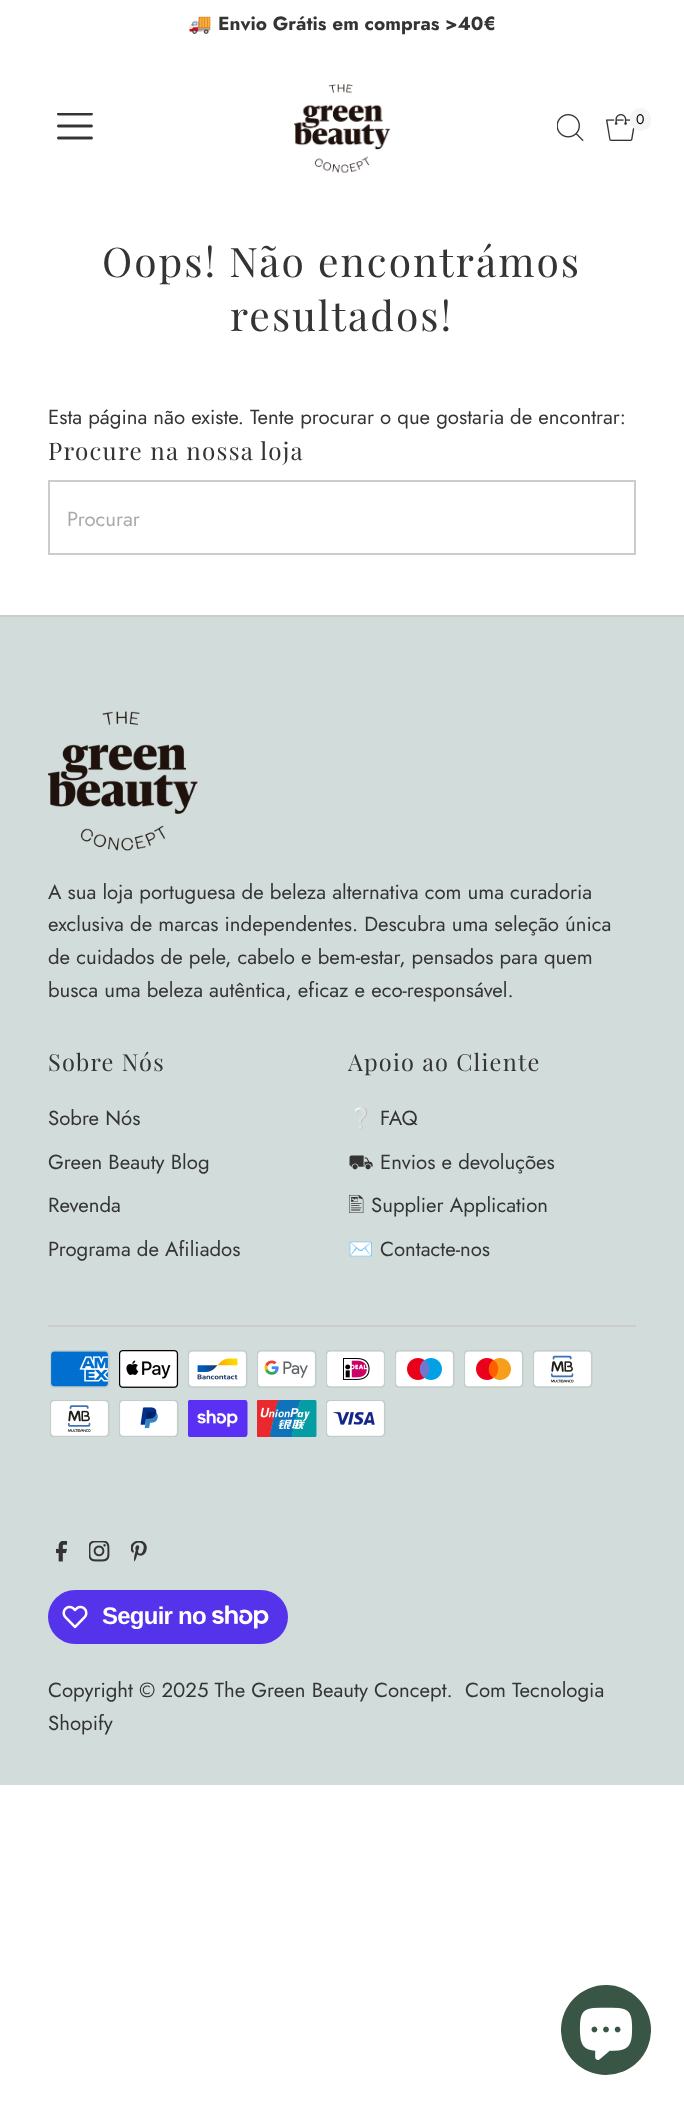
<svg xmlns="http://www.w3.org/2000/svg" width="684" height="2106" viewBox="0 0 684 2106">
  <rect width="100%" height="100%" fill="#ffffff"/>
  <text x="188" y="30" font-family="Noto Color Emoji" font-size="19.1" font-weight="bold" fill="#343434">🚚</text>
  <text x="218" y="30" font-family="Jost" font-size="19.1" font-weight="bold" fill="#343434">Envio Grátis em compras &gt;40€</text>
  <image x="57" y="113" width="36" height="27" href="img1.png"/>
  <image x="294" y="84" width="96" height="89" href="img2.png"/>
  <image x="557" y="114" width="27" height="27" href="img3.png"/>
  <image x="606" y="114" width="29" height="27" href="img4.png"/>
  <rect x="630" y="108" width="21" height="23" rx="10.5" fill="#f5f5f5"/>
  <text x="636" y="124" font-family="Jost" font-size="14" fill="#000000">0</text>
  <text x="102" y="277" font-family="Playfair Display" font-size="40.75" letter-spacing="2" fill="#343434">Oops! Não encontrámos</text>
  <text x="230" y="331" font-family="Playfair Display" font-size="40.75" letter-spacing="2" fill="#343434">resultados!</text>
  <text x="48" y="424" font-family="Jost" font-size="20.4" fill="#343434">Esta página não existe. Tente procurar o que gostaria de encontrar:</text>
  <text x="48" y="460" font-family="Playfair Display" font-size="24.25" letter-spacing="1.25" fill="#343434">Procure na nossa loja</text>
  <rect x="49" y="481" width="586" height="73" fill="none" stroke="#cccccc" stroke-width="2"/>
  <text x="67" y="526" font-family="Jost" font-size="20.4" fill="#aaaaaa">Procurar</text>
  <rect x="0" y="617" width="684" height="1168" fill="#d2dddb"/>
  <rect x="0" y="615" width="684" height="2" fill="#cccccc"/>
  <image x="48" y="711" width="150" height="140" href="img5.png"/>
  <text x="48" y="899" font-family="Jost" font-size="20.4" fill="#343434">A sua loja portuguesa de beleza alternativa com uma curadoria</text>
  <text x="48" y="931" font-family="Jost" font-size="20.4" fill="#343434">exclusiva de marcas independentes. Descubra uma seleção única</text>
  <text x="48" y="964" font-family="Jost" font-size="20.4" fill="#343434">de cuidados de pele, cabelo e bem-estar, pensados para quem</text>
  <text x="48" y="997" font-family="Jost" font-size="20.4" fill="#343434">busca uma beleza autêntica, eficaz e eco-responsável.</text>
  <text x="48" y="1071" font-family="Playfair Display" font-size="23.5" letter-spacing="1.2" fill="#343434">Sobre Nós</text>
  <text x="48" y="1125" font-family="Jost" font-size="20.4" fill="#343434">Sobre Nós</text>
  <text x="48" y="1169" font-family="Jost" font-size="20.4" fill="#343434">Green Beauty Blog</text>
  <text x="48" y="1212" font-family="Jost" font-size="20.4" fill="#343434">Revenda</text>
  <text x="48" y="1256" font-family="Jost" font-size="20.4" fill="#343434">Programa de Afiliados</text>
  <text x="348" y="1071" font-family="Playfair Display" font-size="23.5" letter-spacing="1.2" fill="#343434">Apoio ao Cliente</text>
  <text x="348" y="1125" font-family="Noto Color Emoji" font-size="20.4" fill="#343434">❔</text>
  <text x="380" y="1125" font-family="Jost" font-size="20.4" fill="#343434">FAQ</text>
  <text x="348" y="1169" font-family="STIX Two Math" font-size="20.4" fill="#343434">⛟</text>
  <text x="380" y="1169" font-family="Jost" font-size="20.4" fill="#343434">Envios e devoluções</text>
  <text x="348" y="1212" font-family="'Noto Sans Symbols 2'" font-size="20.4" fill="#343434">🖺</text>
  <text x="371" y="1212" font-family="Jost" font-size="20.4" fill="#343434">Supplier Application</text>
  <text x="348" y="1256" font-family="Noto Color Emoji" font-size="20.4" fill="#343434">✉️</text>
  <text x="380" y="1256" font-family="Jost" font-size="20.4" fill="#343434">Contacte-nos</text>
  <rect x="48" y="1325" width="588" height="2" fill="#cccccc"/>
  <image x="50" y="1350" width="60" height="38" href="img6.png"/>
  <image x="119" y="1350" width="60" height="38" href="img7.png"/>
  <image x="188" y="1350" width="60" height="38" href="img8.png"/>
  <image x="257" y="1350" width="60" height="38" href="img9.png"/>
  <image x="326" y="1350" width="59" height="38" href="img10.png"/>
  <image x="395" y="1350" width="60" height="38" href="img11.png"/>
  <image x="464" y="1350" width="60" height="38" href="img12.png"/>
  <image x="533" y="1350" width="60" height="38" href="img13.png"/>
  <image x="50" y="1400" width="60" height="37" href="img14.png"/>
  <image x="119" y="1400" width="60" height="37" href="img15.png"/>
  <image x="188" y="1400" width="60" height="37" href="img16.png"/>
  <image x="257" y="1400" width="60" height="37" href="img17.png"/>
  <image x="326" y="1400" width="60" height="37" href="img18.png"/>
  <image x="56" y="1541" width="12" height="21" href="img19.png"/>
  <image x="89" y="1541" width="21" height="21" href="img20.png"/>
  <image x="131" y="1541" width="16" height="21" href="img21.png"/>
  <rect x="48" y="1590" width="240" height="54" rx="27" fill="#5433eb"/>
  <image x="62" y="1605" width="26" height="24" href="img22.png"/>
  <text x="102" y="1624" font-family="Liberation Sans" font-size="24" font-weight="bold" letter-spacing="-0.75" fill="#ffffff">Seguir no</text>
  <image x="212" y="1605" width="57" height="24" href="img23.png"/>
  <text x="48" y="1697" font-family="Jost" font-size="20.4" fill="#343434">Copyright © 2025 The Green Beauty Concept.</text>
  <text x="465" y="1697" font-family="Jost" font-size="20.4" fill="#343434">Com Tecnologia</text>
  <text x="48" y="1730" font-family="Jost" font-size="20.4" fill="#343434">Shopify</text>
  <circle cx="606" cy="2030" r="45" fill="#385546"/>
  <image x="579" y="2007" width="54" height="53" href="img24.png"/>
</svg>
